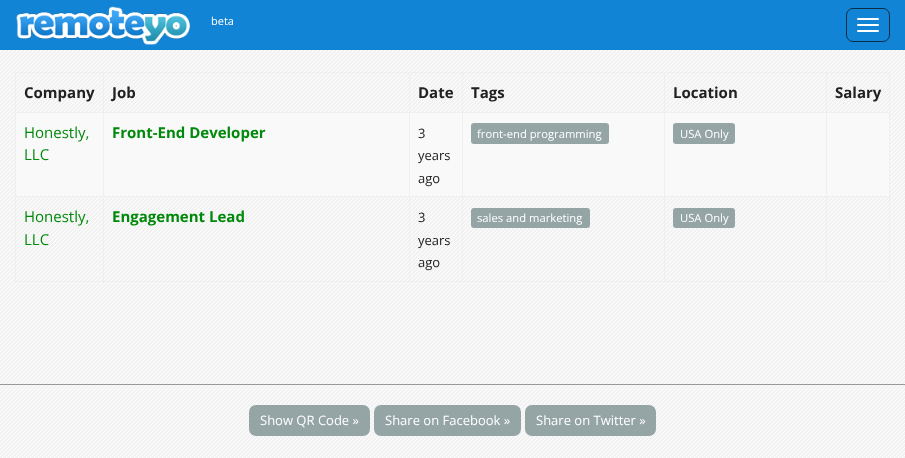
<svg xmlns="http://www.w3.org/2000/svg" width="905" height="458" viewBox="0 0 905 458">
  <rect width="100%" height="100%" fill="#ffffff"/>
  <image x="0" y="50" width="905" height="408" href="img1.png"/>
  <rect x="0" y="0" width="905" height="50" fill="#1184d5"/>
  <image x="16" y="6" width="175" height="39" href="img2.png"/>
  <text x="211" y="25" font-family="Open Sans" font-size="11" fill="#ffffff">beta</text>
  <rect x="846.5" y="8.5" width="43" height="33" rx="6.5" fill="none" stroke="#0b2c45"/>
  <rect x="857" y="18" width="22" height="2" rx="1" fill="#ffffff"/>
  <rect x="857" y="24" width="22" height="2" rx="1" fill="#ffffff"/>
  <rect x="857" y="30" width="22" height="2" rx="1" fill="#ffffff"/>
  <rect x="15" y="72" width="875" height="1" fill="#ecf0f1"/>
  <rect x="889" y="72" width="1" height="210" fill="#ecf0f1"/>
  <rect x="15" y="281" width="875" height="1" fill="#ecf0f1"/>
  <rect x="15" y="72" width="1" height="210" fill="#ecf0f1"/>
  <text x="24" y="98" font-family="Open Sans" font-size="15" font-weight="bold" fill="#212121">Company</text>
  <rect x="826" y="112" width="64" height="1" fill="#ecf0f1"/>
  <rect x="16" y="113" width="873" height="83" fill="#f9f9f9"/>
  <rect x="826" y="196" width="64" height="1" fill="#ecf0f1"/>
  <rect x="826" y="196" width="1" height="86" fill="#ecf0f1"/>
  <rect x="664" y="196" width="163" height="1" fill="#ecf0f1"/>
  <rect x="826" y="112" width="1" height="85" fill="#ecf0f1"/>
  <rect x="664" y="112" width="163" height="1" fill="#ecf0f1"/>
  <rect x="664" y="196" width="1" height="86" fill="#ecf0f1"/>
  <rect x="462" y="196" width="203" height="1" fill="#ecf0f1"/>
  <rect x="664" y="112" width="1" height="85" fill="#ecf0f1"/>
  <rect x="462" y="112" width="203" height="1" fill="#ecf0f1"/>
  <rect x="462" y="196" width="1" height="86" fill="#ecf0f1"/>
  <rect x="409" y="196" width="54" height="1" fill="#ecf0f1"/>
  <rect x="462" y="112" width="1" height="85" fill="#ecf0f1"/>
  <rect x="409" y="112" width="54" height="1" fill="#ecf0f1"/>
  <rect x="409" y="196" width="1" height="86" fill="#ecf0f1"/>
  <rect x="103" y="196" width="307" height="1" fill="#ecf0f1"/>
  <rect x="409" y="112" width="1" height="85" fill="#ecf0f1"/>
  <rect x="103" y="112" width="307" height="1" fill="#ecf0f1"/>
  <rect x="103" y="196" width="1" height="86" fill="#ecf0f1"/>
  <rect x="15" y="196" width="89" height="1" fill="#ecf0f1"/>
  <rect x="103" y="112" width="1" height="85" fill="#ecf0f1"/>
  <rect x="15" y="112" width="89" height="1" fill="#ecf0f1"/>
  <rect x="103" y="72" width="1" height="41" fill="#ecf0f1"/>
  <text x="112" y="98" font-family="Open Sans" font-size="15" font-weight="bold" fill="#212121">Job</text>
  <rect x="409" y="72" width="1" height="41" fill="#ecf0f1"/>
  <text x="418" y="98" font-family="Open Sans" font-size="15" font-weight="bold" fill="#212121">Date</text>
  <rect x="462" y="72" width="1" height="41" fill="#ecf0f1"/>
  <text x="471" y="98" font-family="Open Sans" font-size="15" font-weight="bold" fill="#212121">Tags</text>
  <rect x="664" y="72" width="1" height="41" fill="#ecf0f1"/>
  <text x="673" y="98" font-family="Open Sans" font-size="15" font-weight="bold" fill="#212121">Location</text>
  <rect x="826" y="72" width="1" height="41" fill="#ecf0f1"/>
  <text x="835" y="98" font-family="Open Sans" font-size="15" font-weight="bold" fill="#212121">Salary</text>
  <text x="24" y="138" font-family="Open Sans" font-size="15" fill="#00890a">Honestly,</text>
  <text x="24" y="160" font-family="Open Sans" font-size="15" fill="#00890a">LLC</text>
  <text x="112" y="138" font-family="Open Sans" font-size="15" font-weight="bold" fill="#00890a">Front-End Developer</text>
  <text x="418" y="138" font-family="Open Sans" font-size="13" fill="#212121">3</text>
  <text x="418" y="160" font-family="Open Sans" font-size="13" fill="#212121">years</text>
  <text x="418" y="183" font-family="Open Sans" font-size="13" fill="#212121">ago</text>
  <rect x="471" y="123" width="138" height="21" rx="3" fill="#95a5a6"/>
  <text x="477" y="138" font-family="Open Sans" font-size="11.25" fill="#ffffff">front-end programming</text>
  <rect x="673" y="123" width="62" height="21" rx="3" fill="#95a5a6"/>
  <text x="680" y="138" font-family="Open Sans" font-size="11.25" fill="#ffffff">USA Only</text>
  <text x="24" y="222" font-family="Open Sans" font-size="15" fill="#00890a">Honestly,</text>
  <text x="24" y="245" font-family="Open Sans" font-size="15" fill="#00890a">LLC</text>
  <text x="112" y="222" font-family="Open Sans" font-size="15" font-weight="bold" fill="#00890a">Engagement Lead</text>
  <text x="418" y="222" font-family="Open Sans" font-size="13" fill="#212121">3</text>
  <text x="418" y="245" font-family="Open Sans" font-size="13" fill="#212121">years</text>
  <text x="418" y="267" font-family="Open Sans" font-size="13" fill="#212121">ago</text>
  <rect x="471" y="208" width="119" height="20" rx="3" fill="#95a5a6"/>
  <text x="477" y="222" font-family="Open Sans" font-size="11.25" fill="#ffffff">sales and marketing</text>
  <rect x="673" y="208" width="62" height="20" rx="3" fill="#95a5a6"/>
  <text x="680" y="222" font-family="Open Sans" font-size="11.25" fill="#ffffff">USA Only</text>
  <rect x="0" y="384" width="905" height="1" fill="#999999"/>
  <rect x="250" y="406" width="119" height="29" rx="6" fill="#95a5a6" stroke="#95a5a6" stroke-width="2"/>
  <text x="260" y="425" font-family="Open Sans" font-size="13" fill="#ffffff">Show QR Code »</text>
  <rect x="375" y="406" width="145" height="29" rx="6" fill="#95a5a6" stroke="#95a5a6" stroke-width="2"/>
  <text x="385" y="425" font-family="Open Sans" font-size="13" fill="#ffffff">Share on Facebook »</text>
  <rect x="526" y="406" width="129" height="29" rx="6" fill="#95a5a6" stroke="#95a5a6" stroke-width="2"/>
  <text x="536" y="425" font-family="Open Sans" font-size="13" fill="#ffffff">Share on Twitter »</text>
</svg>
